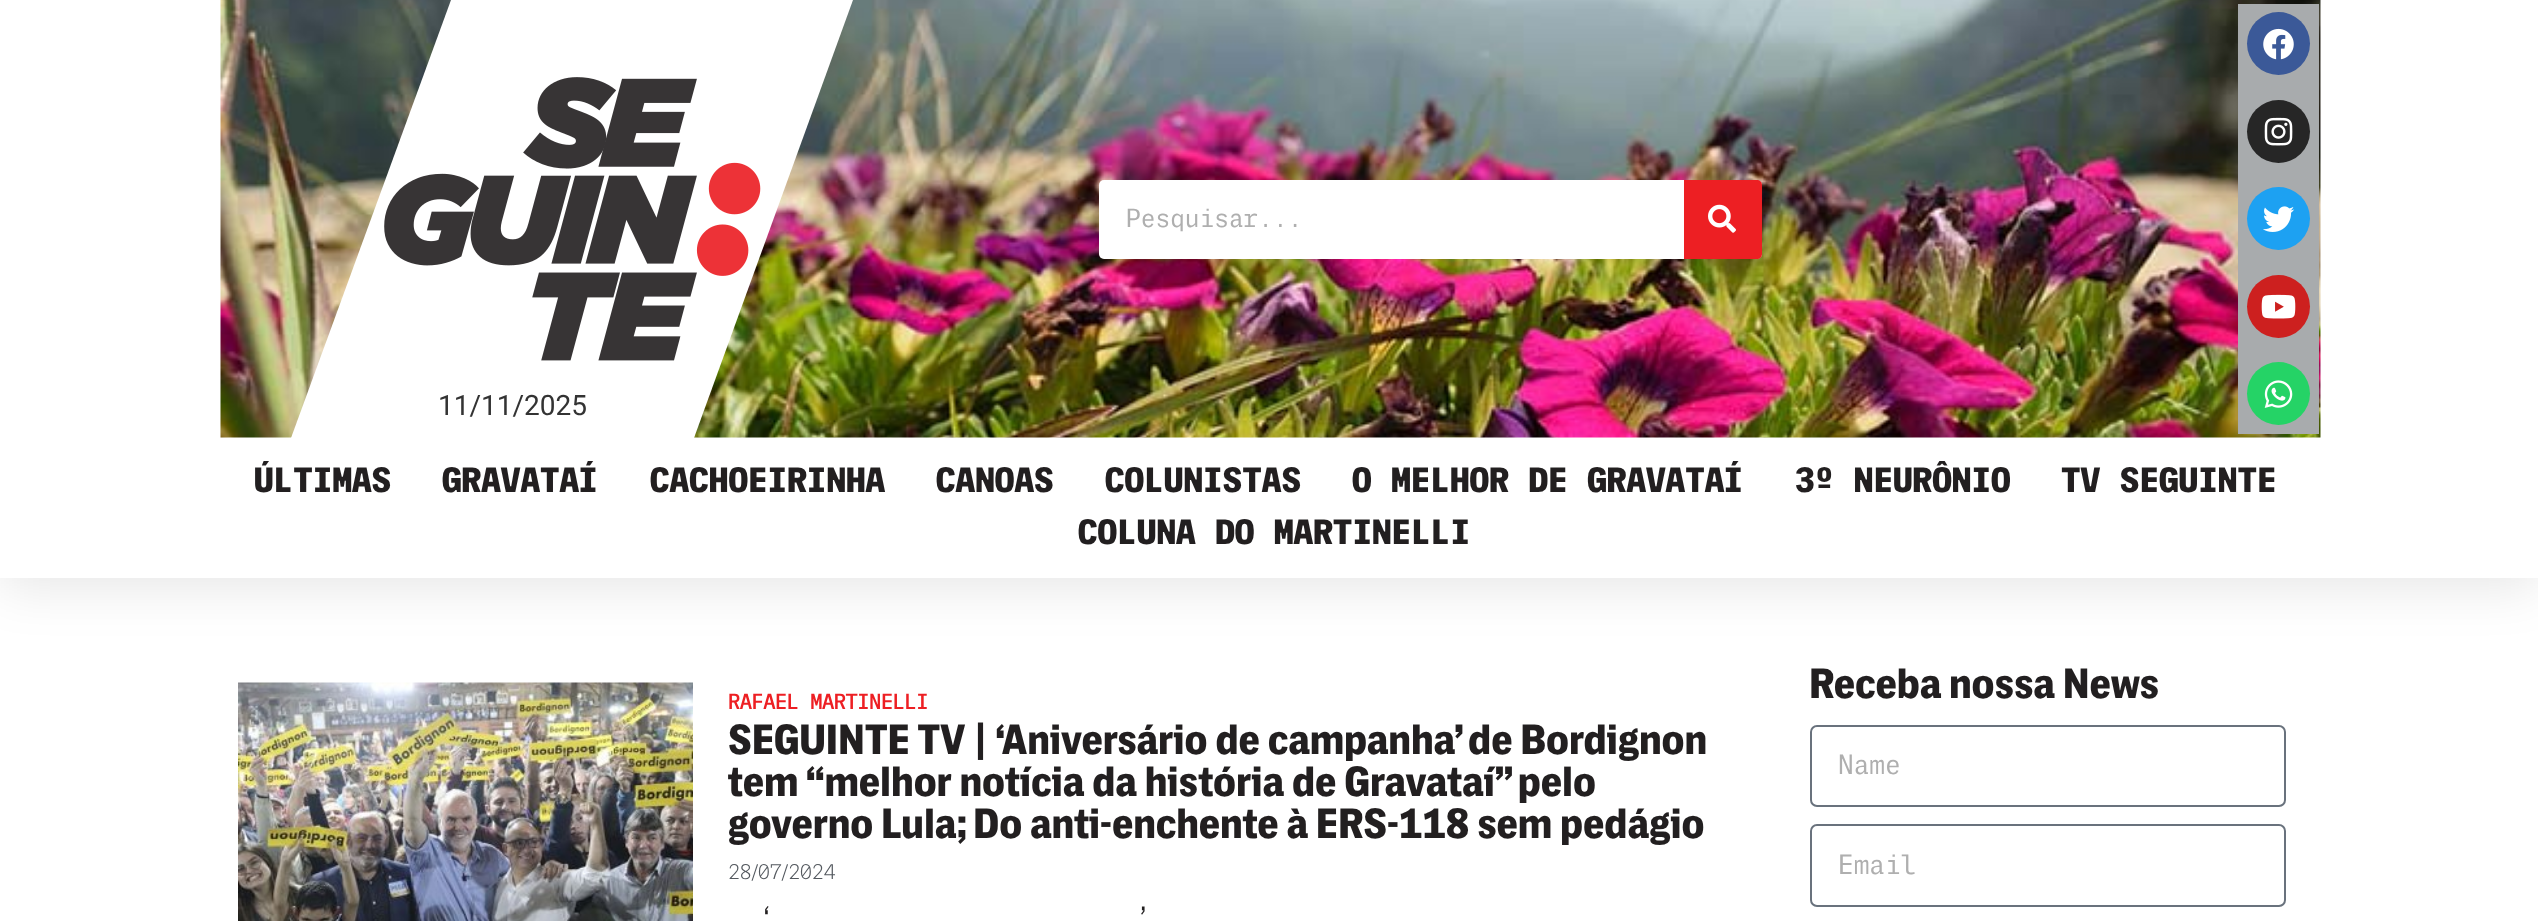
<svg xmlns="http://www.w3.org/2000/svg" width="2538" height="921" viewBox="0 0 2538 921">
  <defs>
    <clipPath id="clip1"><path d="M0 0H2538V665H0ZM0 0H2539V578H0Z" clip-rule="evenodd"/></clipPath>
    <filter id="blur1" x="-50%" y="-200%" width="200%" height="500%"><feGaussianBlur stdDeviation="26"/></filter>
  </defs>
  <rect width="100%" height="100%" fill="#ffffff"/>
  <g clip-path="url(#clip1)">
    <rect x="0" y="9" width="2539" height="577" fill="#000000" fill-opacity="0.1" filter="url(#blur1)"/>
  </g>
  <rect x="221" y="577" width="2100" height="1" fill="#ffffff"/>
  <image x="220" y="0" width="2101" height="438" href="img1.png"/>
  <rect x="1099" y="180" width="663" height="79" rx="5" fill="#ffffff"/>
  <text x="1126" y="227" font-family="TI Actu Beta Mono" font-size="26.25" fill="#afafaf">Pesquisar...</text>
  <path d="M1684 180H1757C1760 180 1762 182 1762 185V254C1762 257 1760 259 1757 259H1684Z" fill="#ed1f23"/>
  <image x="1708" y="204" width="28" height="29" href="img2.png"/>
  <rect x="2238" y="4" width="81" height="430" fill="#a8abad"/>
  <circle cx="2278.5" cy="43.5" r="31.5" fill="#3b5998"/>
  <image x="2263" y="28" width="31" height="32" href="img3.png"/>
  <circle cx="2278.5" cy="131.5" r="31.5" fill="#262626"/>
  <image x="2264" y="117" width="29" height="29" href="img4.png"/>
  <circle cx="2278.5" cy="218.5" r="31.5" fill="#1da1f2"/>
  <image x="2263" y="206" width="32" height="26" href="img5.png"/>
  <circle cx="2278.5" cy="306.5" r="31.5" fill="#cd201f"/>
  <image x="2261" y="294" width="35" height="25" href="img6.png"/>
  <circle cx="2278.5" cy="393.5" r="31.5" fill="#25d366"/>
  <image x="2264" y="380" width="29" height="28" href="img7.png"/>
  <path d="M451 0H853L694 438H291Z" fill="#ffffff"/>
  <image x="384" y="77" width="377" height="284" href="img8.png"/>
  <text x="438" y="415" font-family="Roboto" font-size="28" fill="#333333">11/11/2025</text>
  <text x="254" y="492" font-family="'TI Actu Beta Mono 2'" font-size="35" font-weight="bold" fill="#221f20">ÚLTIMAS</text>
  <text x="442" y="492" font-family="'TI Actu Beta Mono 2'" font-size="35" font-weight="bold" fill="#221f20">GRAVATAÍ</text>
  <text x="650" y="492" font-family="'TI Actu Beta Mono 2'" font-size="35" font-weight="bold" fill="#221f20">CACHOEIRINHA</text>
  <text x="936" y="492" font-family="'TI Actu Beta Mono 2'" font-size="35" font-weight="bold" fill="#221f20">CANOAS</text>
  <text x="1105" y="492" font-family="'TI Actu Beta Mono 2'" font-size="35" font-weight="bold" fill="#221f20">COLUNISTAS</text>
  <text x="1352" y="492" font-family="'TI Actu Beta Mono 2'" font-size="35" font-weight="bold" fill="#221f20">O MELHOR DE GRAVATAÍ</text>
  <text x="1795" y="492" font-family="'TI Actu Beta Mono 2'" font-size="35" font-weight="bold" fill="#221f20">3º NEURÔNIO</text>
  <text x="2061" y="492" font-family="'TI Actu Beta Mono 2'" font-size="35" font-weight="bold" fill="#221f20">TV SEGUINTE</text>
  <text x="1078" y="544" font-family="'TI Actu Beta Mono 2'" font-size="35" font-weight="bold" fill="#221f20">COLUNA DO MARTINELLI</text>
  <image x="238" y="682" width="455" height="239" href="img9.png"/>
  <text x="728" y="709" font-family="TI Actu Beta Mono" font-size="21" font-weight="bold" fill="#ed1f23">RAFAEL MARTINELLI</text>
  <text x="728" y="754" font-family="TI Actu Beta" font-size="42" font-weight="bold" fill="#221f20">SEGUINTE TV | ‘Aniversário de campanha’ de Bordignon</text>
  <text x="728" y="796" font-family="TI Actu Beta" font-size="42" font-weight="bold" fill="#221f20">tem “melhor notícia da história de Gravataí” pelo</text>
  <text x="728" y="838" font-family="TI Actu Beta" font-size="42" font-weight="bold" fill="#221f20">governo Lula; Do anti-enchente à ERS-118 sem pedágio</text>
  <text x="728" y="879" font-family="TI Actu Beta" font-size="21" font-weight="300" fill="#54595f">28/07/2024</text>
  <text x="759" y="926" font-family="TI Actu Beta Mono" font-size="28" fill="#221f20">‘</text>
  <text x="1135" y="926" font-family="TI Actu Beta Mono" font-size="28" fill="#221f20">’</text>
  <text x="1809" y="698" font-family="TI Actu Beta" font-size="42" font-weight="bold" fill="#221f20">Receba nossa News</text>
  <rect x="1811" y="726" width="474" height="80" rx="6" fill="none" stroke="#69727d" stroke-width="2"/>
  <text x="1838" y="774" font-family="TI Actu Beta Mono" font-size="28" fill="#afafaf">Name</text>
  <rect x="1811" y="825" width="474" height="81" rx="6" fill="none" stroke="#69727d" stroke-width="2"/>
  <text x="1838" y="874" font-family="TI Actu Beta Mono" font-size="28" fill="#afafaf">Email</text>
</svg>
